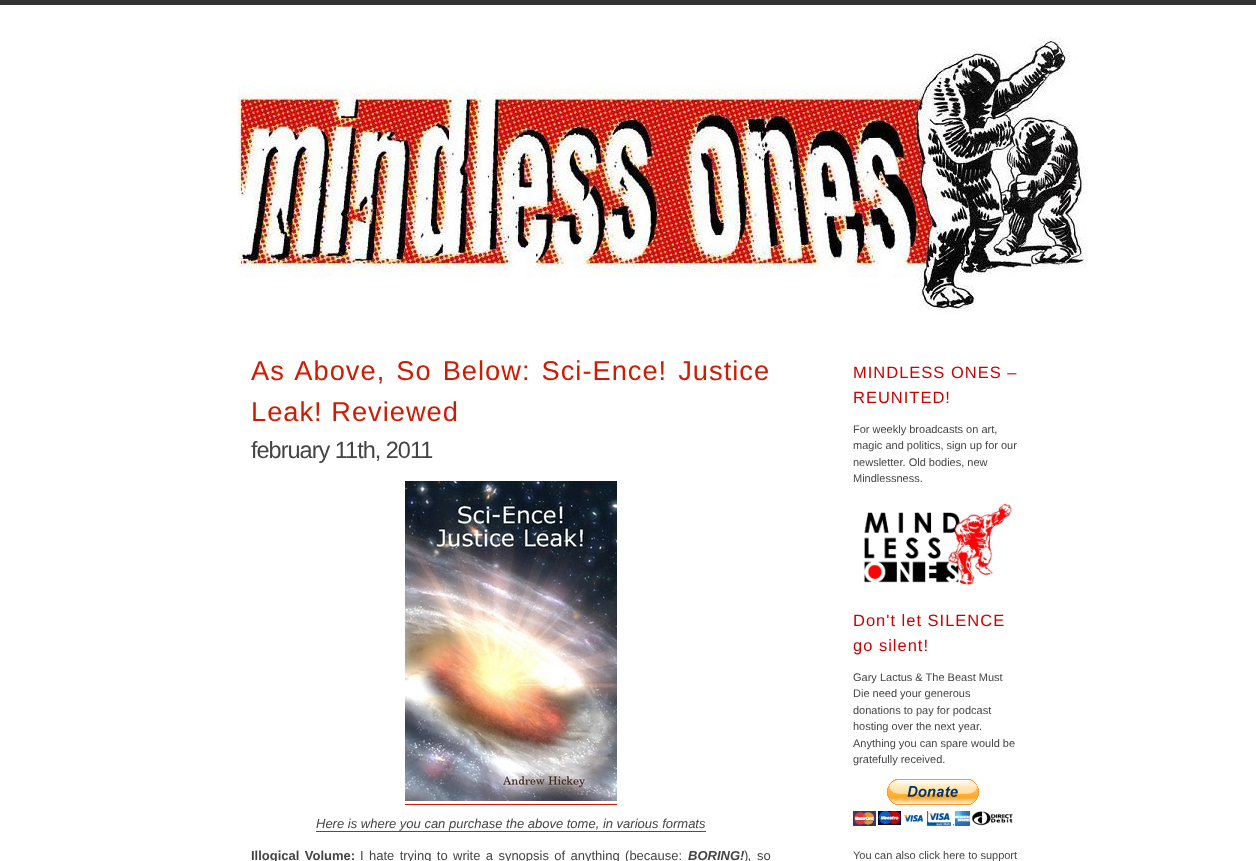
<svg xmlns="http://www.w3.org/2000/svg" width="1256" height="861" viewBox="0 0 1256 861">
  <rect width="100%" height="100%" fill="#ffffff"/>
  <rect x="0" y="0" width="1256" height="5" fill="#333333"/>
  <image x="238" y="37" width="849" height="277" href="img1.png"/>
  <text x="251" y="380" word-spacing="2.5" font-family="Liberation Sans" font-size="27.25" letter-spacing="1" fill="#d11b00">As Above, So Below: Sci-Ence! Justice</text>
  <text x="251" y="421" font-family="Liberation Sans" font-size="27.25" letter-spacing="1" fill="#d11b00">Leak! Reviewed</text>
  <text x="251" y="458" font-family="Liberation Sans" font-size="23.5" letter-spacing="-1" fill="#444444">february 11th, 2011</text>
  <image x="405" y="481" width="212" height="320" href="img2.png"/>
  <rect x="405" y="804" width="212" height="1" fill="#d11b00"/>
  <text x="316" y="828" font-family="Liberation Sans" font-size="13" font-style="italic" fill="#444444">Here is where you can purchase the above tome, in various formats</text>
  <rect x="316" y="831" width="390" height="1" fill="#d11b00"/>
  <text x="251" y="860" word-spacing="1.75" font-family="Liberation Sans" font-size="13" font-weight="bold" fill="#444444">Illogical Volume:</text>
  <text x="360" y="860" word-spacing="1.75" font-family="Liberation Sans" font-size="13" fill="#444444">I hate trying to write a synopsis of anything (because:</text>
  <text x="688" y="860" font-family="Liberation Sans" font-size="13" font-weight="bold" font-style="italic" fill="#444444">BORING!</text>
  <text x="744" y="860" font-family="Liberation Sans" font-size="13" fill="#444444">)</text>
  <text x="748" y="860" font-family="Liberation Sans" font-size="13" font-style="italic" fill="#444444">,</text>
  <text x="757" y="860" font-family="Liberation Sans" font-size="13" fill="#444444">so</text>
  <text x="853" y="378" font-family="Liberation Sans" font-size="16.5" letter-spacing="1" fill="#cc0000">MINDLESS ONES –</text>
  <text x="853" y="403" font-family="Liberation Sans" font-size="16.5" letter-spacing="1" fill="#cc0000">REUNITED!</text>
  <text x="853" y="433" font-family="Liberation Sans" font-size="11" fill="#444444">For weekly broadcasts on art,</text>
  <text x="853" y="449" font-family="Liberation Sans" font-size="11" fill="#444444">magic and politics, sign up for our</text>
  <text x="853" y="466" font-family="Liberation Sans" font-size="11" fill="#444444">newsletter. Old bodies, new</text>
  <text x="853" y="482" font-family="Liberation Sans" font-size="11" fill="#444444">Mindlessness.</text>
  <image x="863" y="502" width="149" height="84" href="img3.png"/>
  <text x="853" y="626" font-family="Liberation Sans" font-size="16.5" letter-spacing="1" fill="#cc0000">Don't let SILENCE</text>
  <text x="853" y="651" font-family="Liberation Sans" font-size="16.5" letter-spacing="1" fill="#cc0000">go silent!</text>
  <text x="853" y="681" font-family="Liberation Sans" font-size="11" fill="#444444">Gary Lactus &amp; The Beast Must</text>
  <text x="853" y="697" font-family="Liberation Sans" font-size="11" fill="#444444">Die need your generous</text>
  <text x="853" y="714" font-family="Liberation Sans" font-size="11" fill="#444444">donations to pay for podcast</text>
  <text x="853" y="730" font-family="Liberation Sans" font-size="11" fill="#444444">hosting over the next year.</text>
  <text x="853" y="747" font-family="Liberation Sans" font-size="11" fill="#444444">Anything you can spare would be</text>
  <text x="853" y="763" font-family="Liberation Sans" font-size="11" fill="#444444">gratefully received.</text>
  <image x="853" y="779" width="160" height="47" href="img4.png"/>
  <text x="853" y="859" font-family="Liberation Sans" font-size="11" fill="#444444">You can also click here to support</text>
</svg>
